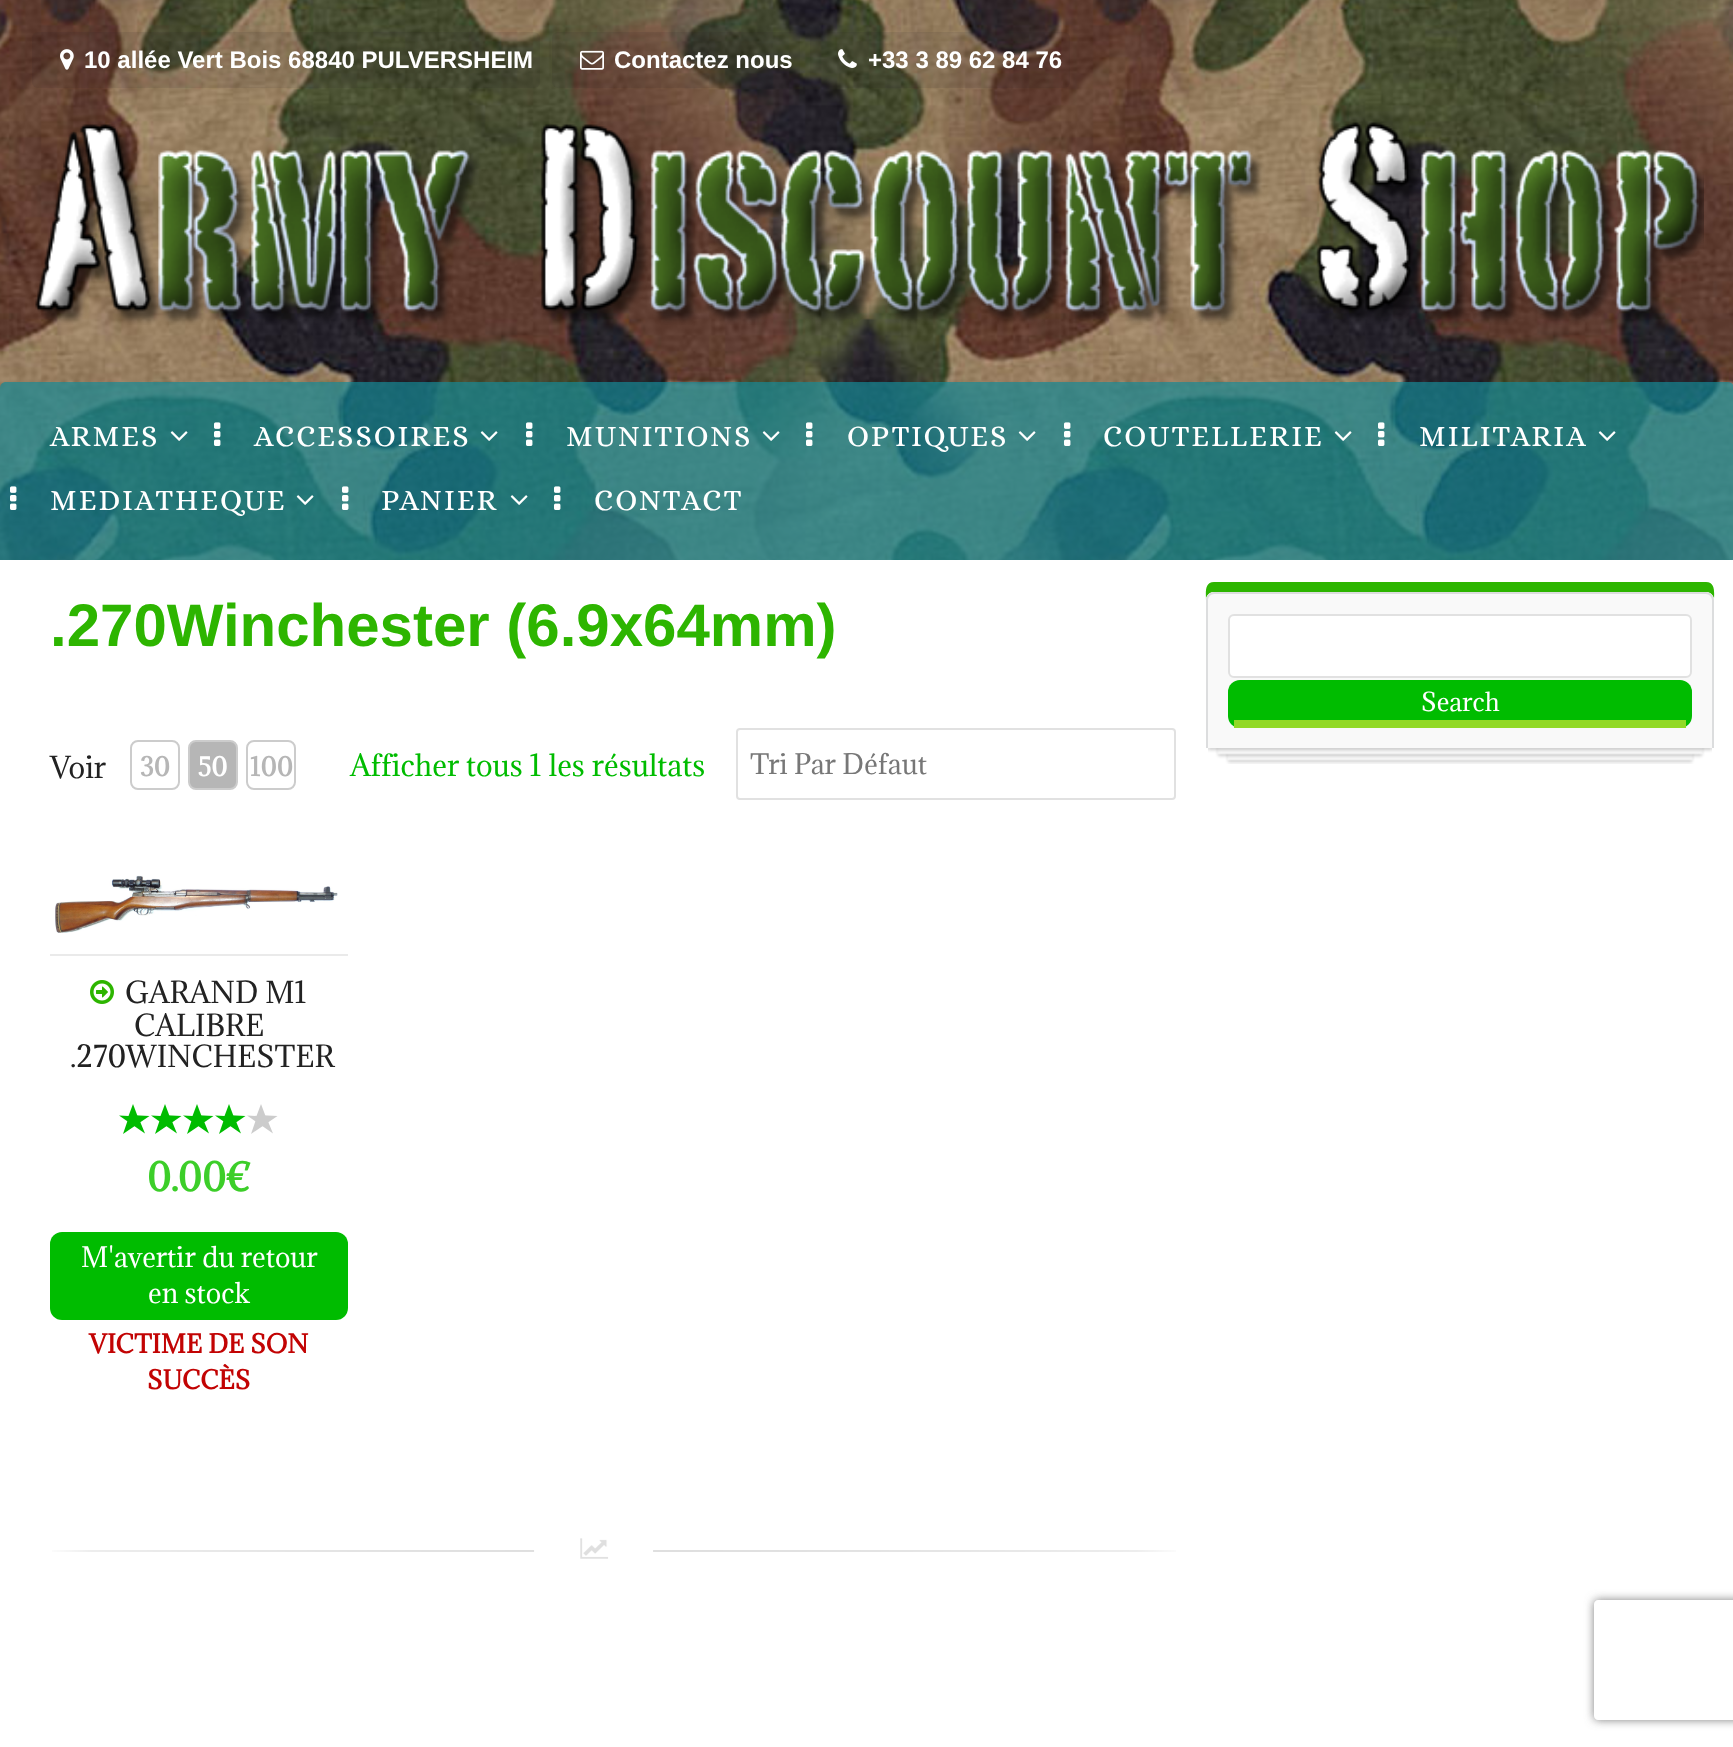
<svg xmlns="http://www.w3.org/2000/svg" width="1733" height="1747" viewBox="0 0 1733 1747">
  <defs>
    <clipPath id="clip1"><path d="M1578 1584H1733V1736H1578ZM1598 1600H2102C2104 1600 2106 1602 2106 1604V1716C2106 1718 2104 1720 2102 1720H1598C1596 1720 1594 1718 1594 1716V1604C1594 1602 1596 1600 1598 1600Z" clip-rule="evenodd"/></clipPath>
    <filter id="blur1" x="-50%" y="-200%" width="200%" height="500%"><feGaussianBlur stdDeviation="5"/></filter>
  </defs>
  <rect width="100%" height="100%" fill="#ffffff"/>
  <image x="0" y="0" width="1733" height="560" href="img1.png"/>
  <rect x="32" y="32" width="508" height="56" rx="6" fill="#272027" fill-opacity="0.1"/>
  <image x="60" y="49" width="14" height="21" href="img2.png"/>
  <text x="84" y="68" font-family="Liberation Sans" font-size="24" font-weight="bold" fill="#ffffff">10 allée Vert Bois 68840 PULVERSHEIM</text>
  <rect x="552" y="32" width="248" height="56" rx="6" fill="#272027" fill-opacity="0.1"/>
  <image x="580" y="50" width="24" height="20" href="img3.png"/>
  <text x="614" y="68" font-family="Liberation Sans" font-size="24" font-weight="bold" fill="#ffffff">Contactez nous</text>
  <rect x="810" y="32" width="260" height="56" rx="6" fill="#272027" fill-opacity="0.1"/>
  <image x="838" y="49" width="19" height="19" href="img4.png"/>
  <text x="868" y="68" font-family="Liberation Sans" font-size="24" font-weight="bold" fill="#ffffff">+33 3 89 62 84 76</text>
  <image x="35" y="122" width="1669" height="203" href="img5.png"/>
  <path d="M6 382H1728C1731.5 382 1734 384.5 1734 388V560H0V388C0 384.5 2.5 382 6 382Z" fill="#148996" fill-opacity="0.69"/>
  <text x="50" y="446" font-family="Alice" font-size="30" letter-spacing="2" fill="#ffffff">ARMES</text>
  <image x="170" y="431" width="18" height="10" href="img6.png"/>
  <image x="214" y="422" width="7" height="24" href="img7.png"/>
  <text x="254" y="446" font-family="Alice" font-size="30" letter-spacing="2" fill="#ffffff">ACCESSOIRES</text>
  <image x="480" y="431" width="18" height="10" href="img8.png"/>
  <image x="526" y="422" width="7" height="24" href="img9.png"/>
  <text x="566" y="446" font-family="Alice" font-size="30" letter-spacing="2" fill="#ffffff">MUNITIONS</text>
  <image x="762" y="431" width="18" height="10" href="img10.png"/>
  <image x="806" y="422" width="7" height="24" href="img11.png"/>
  <text x="847" y="446" font-family="Alice" font-size="30" letter-spacing="2" fill="#ffffff">OPTIQUES</text>
  <image x="1018" y="431" width="18" height="10" href="img12.png"/>
  <image x="1064" y="422" width="7" height="24" href="img13.png"/>
  <text x="1103" y="446" font-family="Alice" font-size="30" letter-spacing="2" fill="#ffffff">COUTELLERIE</text>
  <image x="1334" y="431" width="18" height="10" href="img14.png"/>
  <image x="1378" y="422" width="7" height="24" href="img15.png"/>
  <text x="1419" y="446" font-family="Alice" font-size="30" letter-spacing="2" fill="#ffffff">MILITARIA</text>
  <image x="1598" y="431" width="18" height="10" href="img16.png"/>
  <image x="10" y="486" width="7" height="24" href="img17.png"/>
  <text x="50" y="510" font-family="Alice" font-size="30" letter-spacing="2" fill="#ffffff">MEDIATHEQUE</text>
  <image x="296" y="495" width="18" height="10" href="img18.png"/>
  <image x="342" y="486" width="7" height="24" href="img19.png"/>
  <text x="381" y="510" font-family="Alice" font-size="30" letter-spacing="2" fill="#ffffff">PANIER</text>
  <image x="510" y="495" width="18" height="10" href="img20.png"/>
  <image x="554" y="486" width="7" height="24" href="img21.png"/>
  <text x="594" y="510" font-family="Alice" font-size="30" letter-spacing="2" fill="#ffffff">CONTACT</text>
  <image x="52" y="1538" width="1124" height="21" href="img22.png"/>
  <text x="50" y="646" font-family="Liberation Sans" font-size="60" font-weight="bold" fill="#2db500">.270Winchester (6.9x64mm)</text>
  <text x="50" y="778" font-family="Adamina" font-size="28" fill="#222222">Voir</text>
  <rect x="131" y="741" width="48" height="48" rx="7" fill="none" stroke="#cccccc" stroke-width="2"/>
  <text x="140" y="776" font-family="Adamina" font-size="24" font-weight="bold" fill="#b6b6b6">30</text>
  <rect x="189" y="741" width="48" height="48" rx="7" fill="#b6b6b6" stroke="#cccccc" stroke-width="2"/>
  <text x="198" y="776" font-family="Adamina" font-size="24" font-weight="bold" fill="#ffffff">50</text>
  <rect x="247" y="741" width="48" height="48" rx="7" fill="none" stroke="#cccccc" stroke-width="2"/>
  <text x="250" y="776" font-family="Adamina" font-size="24" font-weight="bold" fill="#b6b6b6">100</text>
  <text x="350" y="776" font-family="Adamina" font-size="28" fill="#00bc00">Afficher tous 1 les résultats</text>
  <rect x="737" y="729" width="438" height="70" rx="3" fill="none" stroke="#e1e1e1" stroke-width="2"/>
  <text x="750" y="774" font-family="Adamina" font-size="26" fill="#777777">Tri Par Défaut</text>
  <image x="55" y="875" width="283" height="58" href="img23.png"/>
  <rect x="50" y="954" width="298" height="2" fill="#eaeaea"/>
  <image x="90" y="980" width="24" height="24" href="img24.png"/>
  <text x="125" y="1003" font-family="Adamina" font-size="28" fill="#222222">GARAND M1</text>
  <text x="134" y="1036" font-family="Adamina" font-size="28" fill="#222222">CALIBRE</text>
  <text x="70" y="1067" font-family="Adamina" font-size="28" fill="#222222">.270WINCHESTER</text>
  <path d="M145 1133.5L119 1115.5L138 1116.5Z" fill="#00bc00"/>
  <path d="M139 1120H127L133 1104Z" fill="#00bc00"/>
  <path d="M149.5 1116L123 1134L129.5 1115ZM177 1133.5L151 1115.5L170 1116.5Z" fill="#00bc00"/>
  <path d="M171 1120H159L165 1104Z" fill="#00bc00"/>
  <path d="M181.5 1116L155 1134L161.5 1115ZM209 1133.5L183 1115.5L202 1116.5Z" fill="#00bc00"/>
  <path d="M203 1120H191L197 1104Z" fill="#00bc00"/>
  <path d="M213.5 1116L187 1134L193.5 1115ZM241 1133.5L215 1115.5L234 1116.5Z" fill="#00bc00"/>
  <path d="M235 1120H223L229 1104Z" fill="#00bc00"/>
  <path d="M245.5 1116L219 1134L225.5 1115Z" fill="#00bc00"/>
  <path d="M273 1133.5L247 1115.5L266 1116.5Z" fill="#cccccc"/>
  <path d="M267 1120H255L261 1104Z" fill="#cccccc"/>
  <path d="M277.5 1116L251 1134L257.5 1115Z" fill="#cccccc"/>
  <text x="147" y="1191" font-family="Adamina" font-size="36" font-weight="bold" fill="#3cce29">0.00€</text>
  <rect x="50" y="1232" width="298" height="88" rx="12" fill="#00bc00"/>
  <text x="81" y="1267" font-family="Adamina" font-size="26" fill="#ffffff">M'avertir du retour</text>
  <text x="148" y="1303" font-family="Adamina" font-size="26" fill="#ffffff">en stock</text>
  <text x="89" y="1353" font-family="Adamina" font-size="24" font-weight="bold" fill="#c20303">VICTIME DE SON</text>
  <text x="147" y="1389" font-family="Adamina" font-size="24" font-weight="bold" fill="#c20303">SUCCÈS</text>
  <path d="M1214 582C1204 582 1206 594 1206 600C1206 596 1210 592 1214 592H1706C1710 592 1714 596 1714 600C1714 594 1716 582 1706 582Z" fill="#2db500"/>
  <path d="M1214 592H1706C1710.5 592 1714 595.5 1714 600V748H1206V600C1206 595.5 1209.5 592 1214 592Z" fill="#f9f9f9"/>
  <path d="M1214 592H1706C1710 592 1714 596 1714 600V748H1206V600C1206 596 1210 592 1214 592ZM1214 594H1706C1709 594 1712 597 1712 600V748H1208V600C1208 597 1211 594 1214 594Z" fill="#dcddde" fill-rule="evenodd"/>
  <rect x="1229" y="615" width="462" height="62" rx="5" fill="#ffffff" stroke="#e1e1e1" stroke-width="2"/>
  <rect x="1228" y="680" width="464" height="48" rx="12" fill="#00bc00"/>
  <rect x="1234" y="720" width="452" height="8" fill="#92d926"/>
  <text x="1421" y="711" font-family="Adamina" font-size="24" fill="#ffffff">Search</text>
  <image x="1208" y="748" width="252" height="16" href="img25.png"/>
  <image x="1460" y="748" width="252" height="16" href="img26.png"/>
  <g clip-path="url(#clip1)">
    <rect x="1594" y="1600" width="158" height="120" rx="4" fill="#808080" filter="url(#blur1)"/>
  </g>
</svg>
